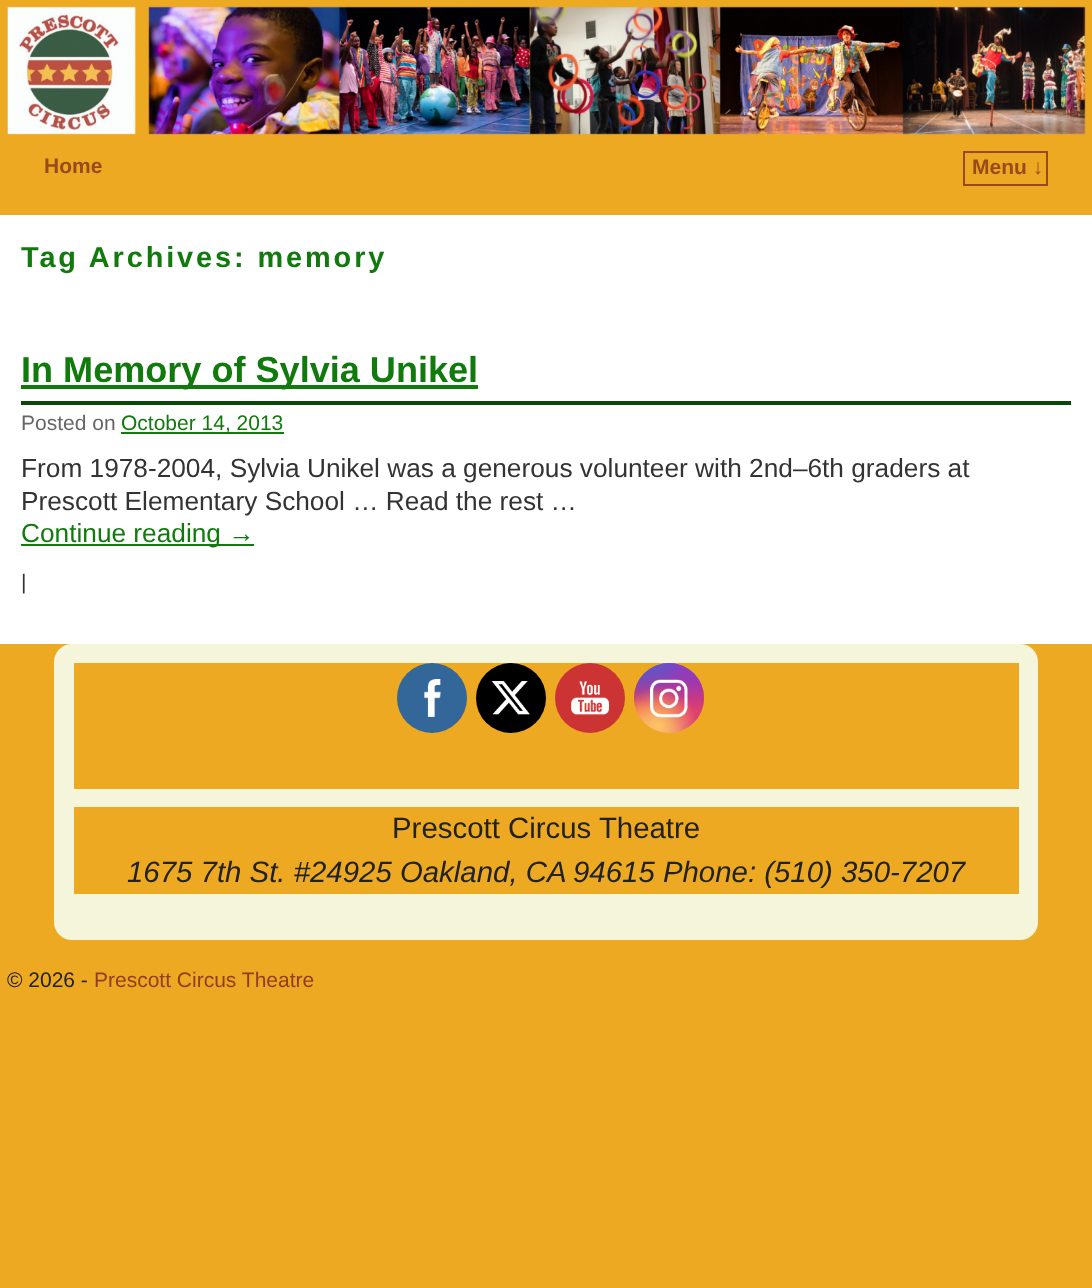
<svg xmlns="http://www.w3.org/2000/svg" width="1092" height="1288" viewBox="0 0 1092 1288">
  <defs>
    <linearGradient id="g1" gradientUnits="userSpaceOnUse" x1="669" y1="663" x2="669" y2="733"><stop offset="0" stop-color="#6559ca"/><stop offset="0.3" stop-color="#bc318f"/><stop offset="0.5" stop-color="#e33f5f"/><stop offset="0.7" stop-color="#f77638"/><stop offset="1" stop-color="#fec66d"/></linearGradient>
    <radialGradient id="g2" gradientUnits="userSpaceOnUse" cx="704" cy="733" r="99"><stop offset="0" stop-color="#d9317a"/><stop offset="1" stop-color="#d9317a" stop-opacity="0"/></radialGradient>
    <radialGradient id="g3" gradientUnits="userSpaceOnUse" cx="0" cy="0" r="1" gradientTransform="matrix(59 0 0 119 676 649)"><stop offset="0" stop-color="#893dc2"/><stop offset="0.5" stop-color="#893dc2" stop-opacity="0"/></radialGradient>
    <radialGradient id="g4" gradientUnits="userSpaceOnUse" cx="704" cy="663" r="99"><stop offset="0" stop-color="#893dc2"/><stop offset="0.5" stop-color="#893dc2" stop-opacity="0"/></radialGradient>
    <radialGradient id="g5" gradientUnits="userSpaceOnUse" cx="0" cy="0" r="1" gradientTransform="matrix(79 0 0 148 648 628)"><stop offset="0" stop-color="#5258cf"/><stop offset="0.5" stop-color="#5258cf" stop-opacity="0"/></radialGradient>
    <radialGradient id="g6" gradientUnits="userSpaceOnUse" cx="0" cy="0" r="1" gradientTransform="matrix(99 0 0 124 634 646)"><stop offset="0" stop-color="#5258cf"/><stop offset="0.5" stop-color="#5258cf" stop-opacity="0"/></radialGradient>
    <radialGradient id="g7" gradientUnits="userSpaceOnUse" cx="634" cy="761" r="120"><stop offset="0" stop-color="#fec564"/><stop offset="0.5" stop-color="#fec564" stop-opacity="0"/></radialGradient>
    <radialGradient id="g8" gradientUnits="userSpaceOnUse" cx="658" cy="726" r="78"><stop offset="0" stop-color="#fec564"/><stop offset="0.5" stop-color="#fec564" stop-opacity="0"/></radialGradient>
  </defs>
  <rect width="100%" height="100%" fill="#eda922"/>
  <image x="7" y="6" width="1079" height="129" href="img1.png"/>
  <text x="44" y="173" font-family="Liberation Sans" font-size="21" font-weight="bold" fill="#994a1c">Home</text>
  <rect x="964" y="152" width="83" height="33" fill="none" stroke="#994a1c" stroke-width="2"/>
  <text x="972" y="174" font-family="Liberation Sans" font-size="21" font-weight="bold" fill="#994a1c">Menu ↓</text>
  <rect x="0" y="215" width="1092" height="429" fill="#ffffff"/>
  <text x="21" y="267" font-family="Liberation Sans" font-size="28.9" font-weight="bold" letter-spacing="2.9" fill="#117a0d">Tag Archives: memory</text>
  <rect x="21" y="401" width="1050" height="4" fill="#0a4708"/>
  <rect x="21" y="385" width="457" height="4" fill="#117a0d"/>
  <text x="21" y="382" font-family="Liberation Sans" font-size="36.1" font-weight="bold" fill="#117a0d">In Memory of Sylvia Unikel</text>
  <text x="21" y="430" font-family="Liberation Sans" font-size="21" fill="#666666">Posted on</text>
  <rect x="121" y="432" width="163" height="2" fill="#117a0d"/>
  <text x="121" y="430" font-family="Liberation Sans" font-size="21" fill="#117a0d">October 14, 2013</text>
  <text x="21" y="477" font-family="Liberation Sans" font-size="26.25" fill="#333333">From 1978-2004, Sylvia Unikel was a generous volunteer with 2nd–6th graders at</text>
  <text x="21" y="510" font-family="Liberation Sans" font-size="26.25" fill="#333333">Prescott Elementary School … Read the rest …</text>
  <rect x="21" y="544" width="233" height="2" fill="#117a0d"/>
  <text x="21" y="542" font-family="Liberation Sans" font-size="26.25" fill="#117a0d">Continue reading →</text>
  <text x="21" y="589" font-family="Liberation Sans" font-size="21" fill="#333333">|</text>
  <rect x="54" y="644" width="984" height="296" rx="18" fill="#f5f5dc"/>
  <rect x="74" y="663" width="945" height="126" fill="#eda922"/>
  <circle cx="432" cy="698" r="35" fill="#336699"/>
  <image x="424" y="679" width="17" height="38" href="img2.png"/>
  <circle cx="511" cy="698" r="35" fill="#000000"/>
  <image x="491" y="681" width="39" height="34" href="img3.png"/>
  <circle cx="590" cy="698" r="35" fill="#cc3333"/>
  <image x="571" y="681" width="38" height="34" href="img4.png"/>
  <circle cx="669" cy="698" r="35" fill="url(#g1)"/>
  <circle cx="669" cy="698" r="35" fill="url(#g2)"/>
  <circle cx="669" cy="698" r="35" fill="url(#g3)"/>
  <circle cx="669" cy="698" r="35" fill="url(#g4)"/>
  <circle cx="669" cy="698" r="35" fill="url(#g5)"/>
  <circle cx="669" cy="698" r="35" fill="url(#g6)"/>
  <circle cx="669" cy="698" r="35" fill="url(#g7)"/>
  <circle cx="669" cy="698" r="35" fill="url(#g8)"/>
  <image x="650" y="679" width="38" height="39" href="img5.png"/>
  <rect x="74" y="807" width="945" height="87" fill="#eda922"/>
  <text x="392" y="838" font-family="Liberation Sans" font-size="29.4" fill="#222222">Prescott Circus Theatre</text>
  <text x="127" y="882" font-family="Liberation Sans" font-size="29.4" font-style="italic" fill="#222222">1675 7th St. #24925 Oakland, CA</text>
  <text x="573" y="882" font-family="Liberation Sans" font-size="29.4" font-style="italic" fill="#222222">94615 Phone: (510) 350-7207</text>
  <text x="7" y="987" font-family="Liberation Sans" font-size="21" fill="#222222">© 2026 -</text>
  <text x="94" y="987" font-family="Liberation Sans" font-size="21" fill="#913e20">Prescott Circus Theatre</text>
</svg>
